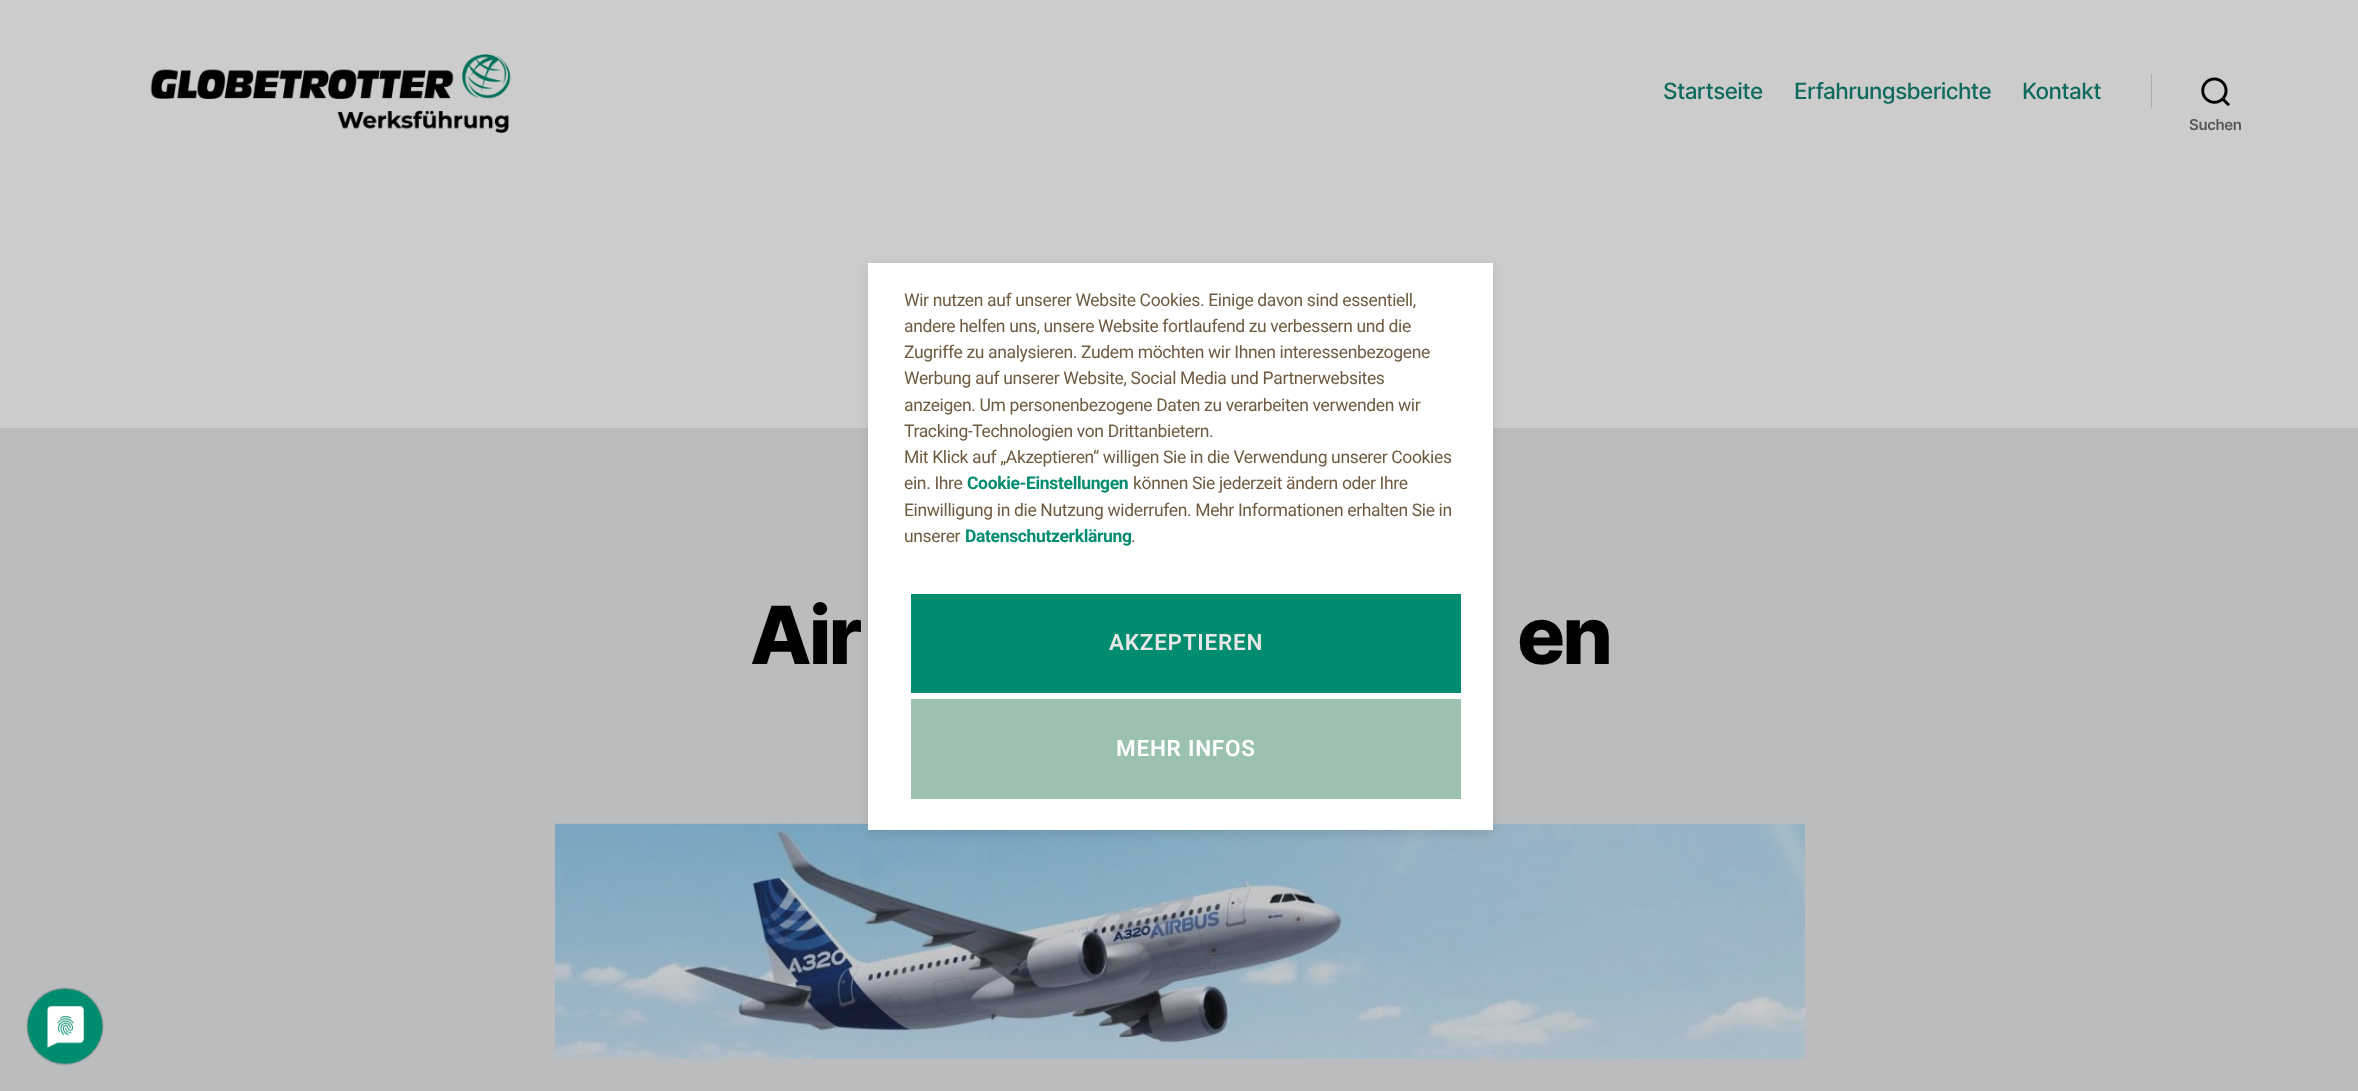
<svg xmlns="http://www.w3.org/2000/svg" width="2358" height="1091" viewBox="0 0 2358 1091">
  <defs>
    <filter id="blur1" x="-50%" y="-200%" width="200%" height="500%"><feGaussianBlur stdDeviation="6"/></filter>
  </defs>
  <rect width="100%" height="100%" fill="#bbbcbe"/>
  <rect x="0" y="0" width="2358" height="428" fill="#cccccc"/>
  <image x="150" y="54" width="361" height="79" href="img1.png"/>
  <text x="1663" y="99" font-family="Inter" font-size="22.5" font-weight="500" letter-spacing="-0.6" fill="#0f6a5e">Startseite</text>
  <text x="1794" y="99" font-family="Inter" font-size="22.5" font-weight="500" letter-spacing="-0.6" fill="#0f6a5e">Erfahrungsberichte</text>
  <text x="2022" y="99" font-family="Inter" font-size="22.5" font-weight="500" letter-spacing="-0.6" fill="#0f6a5e">Kontakt</text>
  <rect x="2151" y="74" width="1" height="34" fill="#b0aca2"/>
  <image x="2201" y="77" width="29" height="30" href="img2.png"/>
  <text x="2189" y="130" font-family="Inter" font-size="15" font-weight="600" letter-spacing="-0.35" fill="#575757">Suchen</text>
  <image x="555" y="823" width="1250" height="236" href="img4.png"/>
  <rect x="868" y="266" width="625" height="568" fill="#000000" fill-opacity="0.1" filter="url(#blur1)"/>
  <rect x="868" y="263" width="625" height="567" fill="#ffffff"/>
  <text x="904" y="306" font-family="Roboto" font-size="17.5" letter-spacing="-0.35" fill="#6f5a41">Wir nutzen auf unserer Website Cookies. Einige davon sind essentiell,</text>
  <text x="904" y="332" font-family="Roboto" font-size="17.5" letter-spacing="-0.35" fill="#6f5a41">andere helfen uns, unsere Website fortlaufend zu verbessern und die</text>
  <text x="904" y="358" font-family="Roboto" font-size="17.5" letter-spacing="-0.35" fill="#6f5a41">Zugriffe zu analysieren. Zudem möchten wir Ihnen interessenbezogene</text>
  <text x="904" y="384" font-family="Roboto" font-size="17.5" letter-spacing="-0.35" fill="#6f5a41">Werbung auf unserer Website, Social Media und Partnerwebsites</text>
  <text x="904" y="411" font-family="Roboto" font-size="17.5" letter-spacing="-0.35" fill="#6f5a41">anzeigen. Um personenbezogene Daten zu verarbeiten verwenden wir</text>
  <text x="904" y="437" font-family="Roboto" font-size="17.5" letter-spacing="-0.35" fill="#6f5a41">Tracking-Technologien von Drittanbietern.</text>
  <text x="904" y="463" font-family="Roboto" font-size="17.5" letter-spacing="-0.35" fill="#6f5a41">Mit Klick auf „Akzeptieren“ willigen Sie in die Verwendung unserer Cookies</text>
  <text x="904" y="489" font-family="Roboto" font-size="17.5" letter-spacing="-0.35" fill="#6f5a41">ein. Ihre</text>
  <text x="967" y="489" font-family="Roboto" font-size="17.5" font-weight="bold" letter-spacing="-0.35" fill="#008c6f">Cookie-Einstellungen</text>
  <text x="1133" y="489" font-family="Roboto" font-size="17.5" letter-spacing="-0.35" fill="#6f5a41">können Sie jederzeit ändern oder Ihre</text>
  <text x="904" y="516" font-family="Roboto" font-size="17.5" letter-spacing="-0.35" fill="#6f5a41">Einwilligung in die Nutzung widerrufen. Mehr Informationen erhalten Sie in</text>
  <text x="904" y="542" font-family="Roboto" font-size="17.5" letter-spacing="-0.35" fill="#6f5a41">unserer</text>
  <text x="965" y="542" font-family="Roboto" font-size="17.5" font-weight="bold" letter-spacing="-0.35" fill="#008c6f">Datenschutzerklärung</text>
  <text x="1131" y="542" font-family="Roboto" font-size="17.5" letter-spacing="-0.35" fill="#6f5a41">.</text>
  <rect x="911" y="594" width="550" height="99" fill="#008c6f"/>
  <text x="1109" y="650" font-family="Roboto" font-size="22.5" font-weight="600" letter-spacing="0.75" fill="#e6e6e6">AKZEPTIEREN</text>
  <rect x="911" y="699" width="550" height="100" fill="#9bc2b1"/>
  <text x="1116" y="756" font-family="Roboto" font-size="22.5" font-weight="600" letter-spacing="0.75" fill="#ffffff">MEHR INFOS</text>
  <image x="26" y="987" width="78" height="79" href="img3.png"/>
  <text x="750" y="664" font-family="Inter" font-size="80" font-weight="800" letter-spacing="-3" fill="#000000">Air</text>
  <text x="1517" y="664" font-family="Inter" font-size="80" font-weight="800" letter-spacing="-3" fill="#000000">en</text>
</svg>
